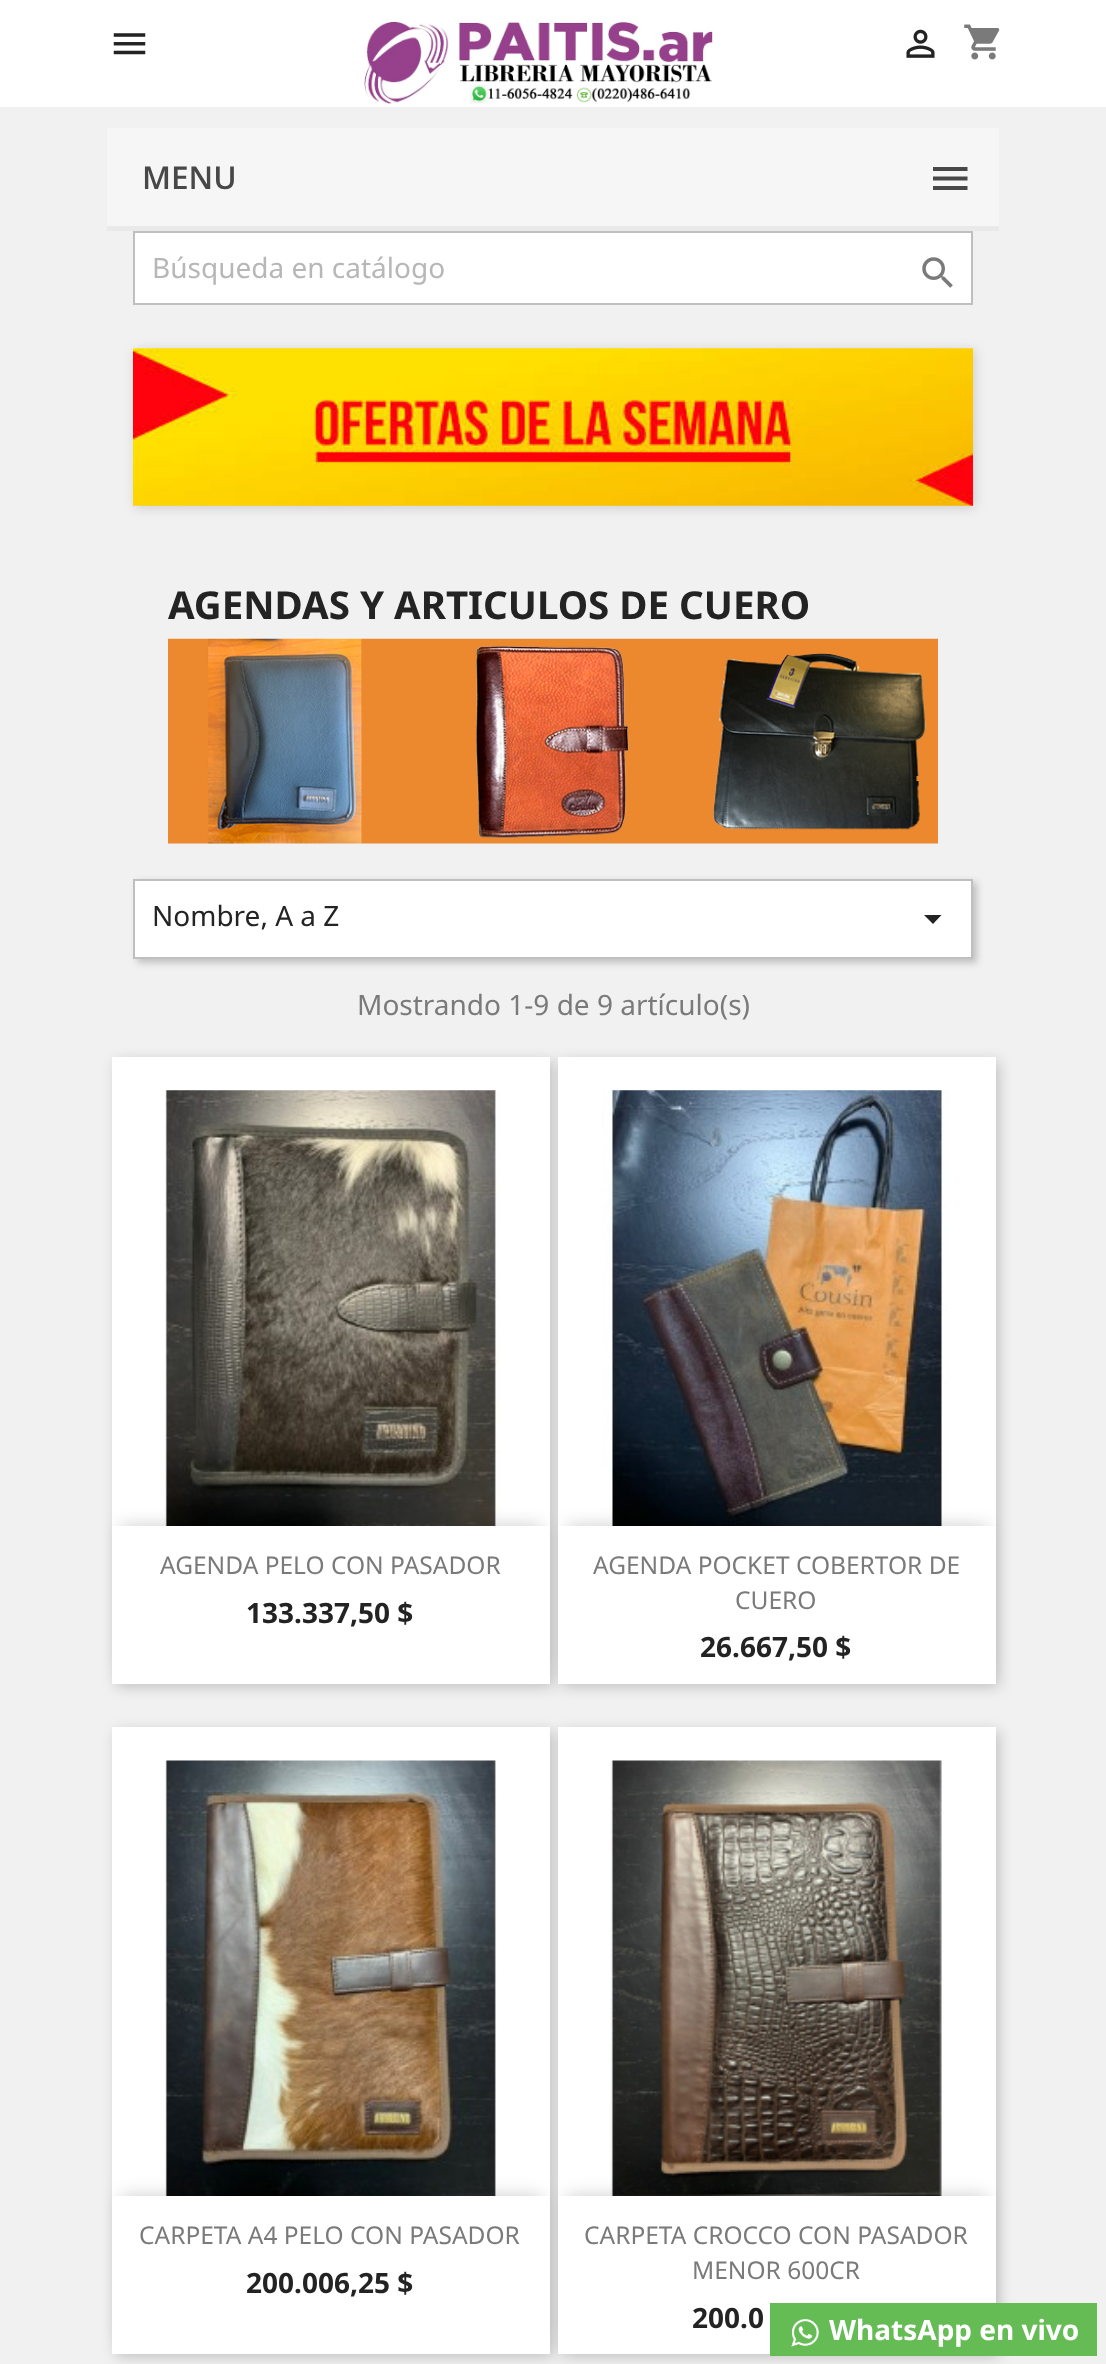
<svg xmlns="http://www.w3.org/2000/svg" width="1106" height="2364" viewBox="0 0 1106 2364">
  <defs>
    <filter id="blur1" x="-50%" y="-200%" width="200%" height="500%"><feGaussianBlur stdDeviation="6"/></filter>
    <filter id="blur2" x="-50%" y="-200%" width="200%" height="500%"><feGaussianBlur stdDeviation="3.5"/></filter>
    <filter id="blur3" x="-50%" y="-200%" width="200%" height="500%"><feGaussianBlur stdDeviation="7"/></filter>
    <filter id="blur4" x="-50%" y="-200%" width="200%" height="500%"><feGaussianBlur stdDeviation="9"/></filter>
  </defs>
  <rect width="100%" height="100%" fill="#f1f1f1"/>
  <rect x="0" y="0" width="1106" height="107" fill="#ffffff"/>
  <image x="113" y="33" width="33" height="22" href="img1.png"/>
  <image x="364" y="21" width="349" height="83" href="img2.png"/>
  <image x="906" y="29" width="29" height="29" href="img3.png"/>
  <image x="964" y="24" width="36" height="36" href="img4.png"/>
  <rect x="107" y="128" width="892" height="98" fill="#f6f6f6"/>
  <rect x="107" y="226" width="892" height="5" fill="#e9e9e9"/>
  <text x="142" y="189" font-family="Open Sans" font-size="31.5" font-weight="600" fill="#484848">MENU</text>
  <path d="M933 167H967.5V171H933ZM933 180.5V176.5H967.5V180.5ZM933 190V186H967.5V190Z" fill="#484848"/>
  <rect x="134" y="232" width="838" height="72" fill="#ffffff" stroke="#bfbfbf" stroke-width="2"/>
  <text x="152" y="278" font-family="Noto Sans" font-size="28" fill="#b7b7b7">Búsqueda en catálogo</text>
  <image x="922" y="257" width="31" height="31" href="img5.png"/>
  <rect x="135" y="350" width="840" height="158" fill="#000000" fill-opacity="0.15" filter="url(#blur1)"/>
  <image x="133" y="348" width="840" height="158" href="img6.png"/>
  <text x="168" y="619" font-family="Noto Sans" font-size="38.5" font-weight="bold" fill="#232323">AGENDAS Y ARTICULOS DE CUERO</text>
  <image x="168" y="638" width="770" height="206" href="img7.png"/>
  <rect x="137" y="882" width="840" height="81" fill="#000000" fill-opacity="0.2" filter="url(#blur2)"/>
  <rect x="134" y="880" width="838" height="78" fill="#ffffff" stroke="#bfbfbf" stroke-width="2"/>
  <text x="152" y="926" font-family="Noto Sans" font-size="28" fill="#232323">Nombre, A a Z</text>
  <path d="M924 915H941.5L933 924Z" fill="#232323"/>
  <text x="357" y="1015" font-family="Noto Sans" font-size="28" fill="#7a7a7a">Mostrando 1-9 de 9 artículo(s)</text>
  <rect x="116" y="1061" width="437" height="626" fill="#000000" fill-opacity="0.2" filter="url(#blur3)"/>
  <rect x="112" y="1057" width="438" height="469" fill="#ffffff"/>
  <image x="165" y="1090" width="335" height="436" href="img8.png"/>
  <rect x="562" y="1061" width="437" height="626" fill="#000000" fill-opacity="0.2" filter="url(#blur3)"/>
  <rect x="558" y="1057" width="438" height="469" fill="#ffffff"/>
  <rect x="121" y="1526" width="420" height="140" fill="#000000" fill-opacity="0.2" filter="url(#blur4)"/>
  <rect x="112" y="1526" width="438" height="158" fill="#ffffff"/>
  <text x="160" y="1574" font-family="Noto Sans" font-size="24.5" fill="#7a7a7a">AGENDA PELO CON PASADOR</text>
  <text x="246" y="1623" font-family="Noto Sans" font-size="28" font-weight="bold" fill="#232323">133.337,50 $</text>
  <image x="602" y="1090" width="348" height="436" href="img9.png"/>
  <rect x="567" y="1526" width="420" height="140" fill="#000000" fill-opacity="0.2" filter="url(#blur4)"/>
  <rect x="558" y="1526" width="438" height="158" fill="#ffffff"/>
  <text x="593" y="1574" font-family="Noto Sans" font-size="24.5" fill="#7a7a7a">AGENDA POCKET COBERTOR DE</text>
  <text x="735" y="1609" font-family="Noto Sans" font-size="24.5" fill="#7a7a7a">CUERO</text>
  <text x="700" y="1657" font-family="Noto Sans" font-size="28" font-weight="bold" fill="#232323">26.667,50 $</text>
  <rect x="116" y="1731" width="437" height="626" fill="#000000" fill-opacity="0.2" filter="url(#blur3)"/>
  <rect x="112" y="1727" width="438" height="469" fill="#ffffff"/>
  <image x="165" y="1760" width="332" height="436" href="img10.png"/>
  <rect x="562" y="1731" width="437" height="626" fill="#000000" fill-opacity="0.2" filter="url(#blur3)"/>
  <rect x="558" y="1727" width="438" height="469" fill="#ffffff"/>
  <rect x="121" y="2196" width="420" height="140" fill="#000000" fill-opacity="0.2" filter="url(#blur4)"/>
  <rect x="112" y="2196" width="438" height="158" fill="#ffffff"/>
  <text x="139" y="2244" font-family="Noto Sans" font-size="24.5" fill="#7a7a7a">CARPETA A4 PELO CON PASADOR</text>
  <text x="246" y="2293" font-family="Noto Sans" font-size="28" font-weight="bold" fill="#232323">200.006,25 $</text>
  <image x="610" y="1760" width="332" height="436" href="img11.png"/>
  <rect x="567" y="2196" width="420" height="140" fill="#000000" fill-opacity="0.2" filter="url(#blur4)"/>
  <rect x="558" y="2196" width="438" height="158" fill="#ffffff"/>
  <text x="584" y="2244" font-family="Noto Sans" font-size="24.5" fill="#7a7a7a">CARPETA CROCCO CON PASADOR</text>
  <text x="692" y="2279" font-family="Noto Sans" font-size="24.5" fill="#7a7a7a">MENOR 600CR</text>
  <text x="692" y="2328" font-family="Noto Sans" font-size="28" font-weight="bold" fill="#232323">200.0</text>
  <rect x="770" y="2303" width="327" height="53" fill="#65bc54"/>
  <image x="791" y="2319" width="28" height="28" href="img12.png"/>
  <text x="829" y="2340" font-family="Noto Sans" font-size="28" font-weight="bold" fill="#ffffff">WhatsApp en vivo</text>
</svg>
